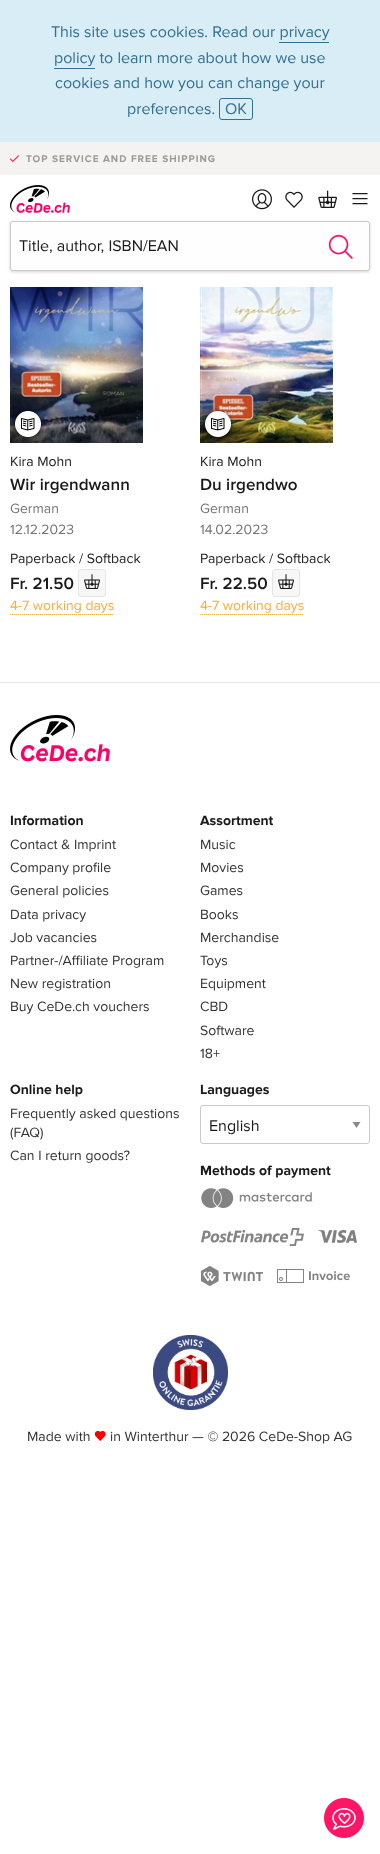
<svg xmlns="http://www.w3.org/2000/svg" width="380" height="1854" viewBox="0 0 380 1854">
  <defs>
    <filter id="blur1" x="-50%" y="-200%" width="200%" height="500%"><feGaussianBlur stdDeviation="1.5"/></filter>
  </defs>
  <rect width="100%" height="100%" fill="#ffffff"/>
  <rect x="0" y="0" width="380" height="142" fill="#d9edf7"/>
  <text x="51" y="37" font-family="Proxima Nova" font-size="16" fill="#31708f">This site uses cookies. Read our privacy</text>
  <text x="54" y="63" font-family="Proxima Nova" font-size="16" fill="#31708f">policy to learn more about how we use</text>
  <rect x="279" y="42" width="50" height="1" fill="#31708f"/>
  <rect x="54" y="68" width="41" height="1" fill="#31708f"/>
  <text x="55" y="88" font-family="Proxima Nova" font-size="16" fill="#31708f">cookies and how you can change your</text>
  <text x="127" y="114" font-family="Proxima Nova" font-size="16" fill="#31708f">preferences.</text>
  <rect x="219.5" y="98.5" width="33" height="21" rx="2.5" fill="none" stroke="#31708f"/>
  <text x="225" y="114" font-family="Proxima Nova" font-size="16" fill="#31708f">OK</text>
  <rect x="0" y="142" width="380" height="33" fill="#f4f3f1"/>
  <image x="10" y="155" width="9" height="7" href="img1.png"/>
  <text x="26" y="162" font-family="Proxima Nova" font-size="10" font-weight="bold" letter-spacing="1" fill="#9d9993">TOP SERVICE AND FREE SHIPPING</text>
  <image x="10" y="185" width="60" height="28" href="img2.png"/>
  <image x="252" y="189" width="20" height="21" href="img3.png"/>
  <image x="285" y="191" width="18" height="17" href="img4.png"/>
  <image x="318" y="190" width="19" height="18" href="img5.png"/>
  <image x="352" y="193" width="16" height="12" href="img6.png"/>
  <rect x="10" y="222" width="360" height="50" rx="3" fill="#000000" fill-opacity="0.17" filter="url(#blur1)"/>
  <rect x="10.5" y="221.5" width="359" height="49" rx="2.5" fill="#fefefe" stroke="#cacaca"/>
  <text x="19" y="251" font-family="Proxima Nova" font-size="16" fill="#1a1a1a">Title, author, ISBN/EAN</text>
  <image x="328" y="234" width="25" height="25" href="img7.png"/>
  <image x="10" y="287" width="133" height="156" href="img8.png"/>
  <image x="12" y="410" width="33" height="31" href="img9.png"/>
  <text x="10" y="466" font-family="Proxima Nova" font-size="14" fill="#1a1a1a">Kira Mohn</text>
  <text x="10" y="490" font-family="Proxima Nova" font-size="17" font-weight="600" fill="#1a1a1a">Wir irgendwann</text>
  <text x="10" y="513" font-family="Proxima Nova" font-size="14" fill="#767676">German</text>
  <text x="10" y="534" font-family="Proxima Nova" font-size="14" fill="#767676">12.12.2023</text>
  <text x="10" y="563" font-family="Proxima Nova" font-size="14" fill="#1a1a1a">Paperback / Softback</text>
  <text x="10" y="589" font-family="Proxima Nova" font-size="17" font-weight="600" fill="#1a1a1a">Fr. 21.50</text>
  <rect x="78.5" y="569.5" width="27" height="27" rx="2.5" fill="#f7f7f7" stroke="#e5e5e5"/>
  <image x="84" y="574" width="16" height="15" href="img10.png"/>
  <text x="10" y="610" font-family="Proxima Nova" font-size="14" fill="#ffa93c">4-7 working days</text>
  <path d="M10 614.5H114" fill="none" stroke="#ffa93c" stroke-dasharray="1 1"/>
  <image x="200" y="287" width="133" height="156" href="img11.png"/>
  <image x="202" y="408" width="33" height="33" href="img12.png"/>
  <text x="200" y="466" font-family="Proxima Nova" font-size="14" fill="#1a1a1a">Kira Mohn</text>
  <text x="200" y="490" font-family="Proxima Nova" font-size="17" font-weight="600" fill="#1a1a1a">Du irgendwo</text>
  <text x="200" y="513" font-family="Proxima Nova" font-size="14" fill="#767676">German</text>
  <text x="200" y="534" font-family="Proxima Nova" font-size="14" fill="#767676">14.02.2023</text>
  <text x="200" y="563" font-family="Proxima Nova" font-size="14" fill="#1a1a1a">Paperback / Softback</text>
  <text x="200" y="589" font-family="Proxima Nova" font-size="17" font-weight="600" fill="#1a1a1a">Fr. 22.50</text>
  <rect x="272.5" y="569.5" width="27" height="27" rx="2.5" fill="#f7f7f7" stroke="#e5e5e5"/>
  <image x="278" y="574" width="16" height="15" href="img10.png"/>
  <text x="200" y="610" font-family="Proxima Nova" font-size="14" fill="#ffa93c">4-7 working days</text>
  <path d="M200 614.5H304" fill="none" stroke="#ffa93c" stroke-dasharray="1 1"/>
  <rect x="0" y="682" width="380" height="1" fill="#e6e6e6"/>
  <image x="10" y="715" width="100" height="47" href="img13.png"/>
  <text x="10" y="825" font-family="Proxima Nova" font-size="14" font-weight="bold" fill="#1a1a1a">Information</text>
  <text x="10" y="849" font-family="Proxima Nova" font-size="14" fill="#333333">Contact &amp; Imprint</text>
  <text x="10" y="872" font-family="Proxima Nova" font-size="14" fill="#333333">Company profile</text>
  <text x="10" y="895" font-family="Proxima Nova" font-size="14" fill="#333333">General policies</text>
  <text x="10" y="919" font-family="Proxima Nova" font-size="14" fill="#333333">Data privacy</text>
  <text x="10" y="942" font-family="Proxima Nova" font-size="14" fill="#333333">Job vacancies</text>
  <text x="10" y="965" font-family="Proxima Nova" font-size="14" fill="#333333">Partner-/Affiliate Program</text>
  <text x="10" y="988" font-family="Proxima Nova" font-size="14" fill="#333333">New registration</text>
  <text x="10" y="1011" font-family="Proxima Nova" font-size="14" fill="#333333">Buy CeDe.ch vouchers</text>
  <text x="200" y="825" font-family="Proxima Nova" font-size="14" font-weight="bold" fill="#1a1a1a">Assortment</text>
  <text x="200" y="849" font-family="Proxima Nova" font-size="14" fill="#333333">Music</text>
  <text x="200" y="872" font-family="Proxima Nova" font-size="14" fill="#333333">Movies</text>
  <text x="200" y="895" font-family="Proxima Nova" font-size="14" fill="#333333">Games</text>
  <text x="200" y="919" font-family="Proxima Nova" font-size="14" fill="#333333">Books</text>
  <text x="200" y="942" font-family="Proxima Nova" font-size="14" fill="#333333">Merchandise</text>
  <text x="200" y="965" font-family="Proxima Nova" font-size="14" fill="#333333">Toys</text>
  <text x="200" y="988" font-family="Proxima Nova" font-size="14" fill="#333333">Equipment</text>
  <text x="200" y="1011" font-family="Proxima Nova" font-size="14" fill="#333333">CBD</text>
  <text x="200" y="1035" font-family="Proxima Nova" font-size="14" fill="#333333">Software</text>
  <text x="200" y="1058" font-family="Proxima Nova" font-size="14" fill="#333333">18+</text>
  <text x="10" y="1094" font-family="Proxima Nova" font-size="14" font-weight="bold" fill="#1a1a1a">Online help</text>
  <text x="10" y="1118" font-family="Proxima Nova" font-size="14" fill="#333333">Frequently asked questions</text>
  <text x="10" y="1137" font-family="Proxima Nova" font-size="14" fill="#333333">(FAQ)</text>
  <text x="10" y="1160" font-family="Proxima Nova" font-size="14" fill="#333333">Can I return goods?</text>
  <text x="200" y="1094" font-family="Proxima Nova" font-size="14" font-weight="bold" fill="#1a1a1a">Languages</text>
  <path d="M352.5 1122H360.5L356.5 1128Z" fill="#8a8a8a"/>
  <rect x="200.5" y="1105.5" width="169" height="38" rx="2.5" fill="none" stroke="#cacaca"/>
  <text x="209" y="1131" font-family="Proxima Nova" font-size="16" fill="#1a1a1a">English</text>
  <text x="200" y="1175" font-family="Proxima Nova" font-size="14" font-weight="bold" fill="#1a1a1a">Methods of payment</text>
  <image x="201" y="1188" width="113" height="20" href="img14.png"/>
  <image x="201" y="1228" width="103" height="18" href="img15.png"/>
  <image x="318" y="1230" width="39" height="13" href="img16.png"/>
  <image x="201" y="1266" width="62" height="20" href="img17.png"/>
  <image x="277" y="1269" width="73" height="14" href="img18.png"/>
  <image x="153" y="1335" width="75" height="75" href="img19.png"/>
  <text x="27" y="1441" font-family="Proxima Nova" font-size="14" fill="#333333">Made with</text>
  <image x="94" y="1430" width="12" height="11" href="img20.png"/>
  <text x="110" y="1441" font-family="Proxima Nova" font-size="14" fill="#333333">in Winterthur — © 2026 CeDe-Shop AG</text>
  <image x="324" y="1798" width="40" height="40" href="img21.png"/>
</svg>
